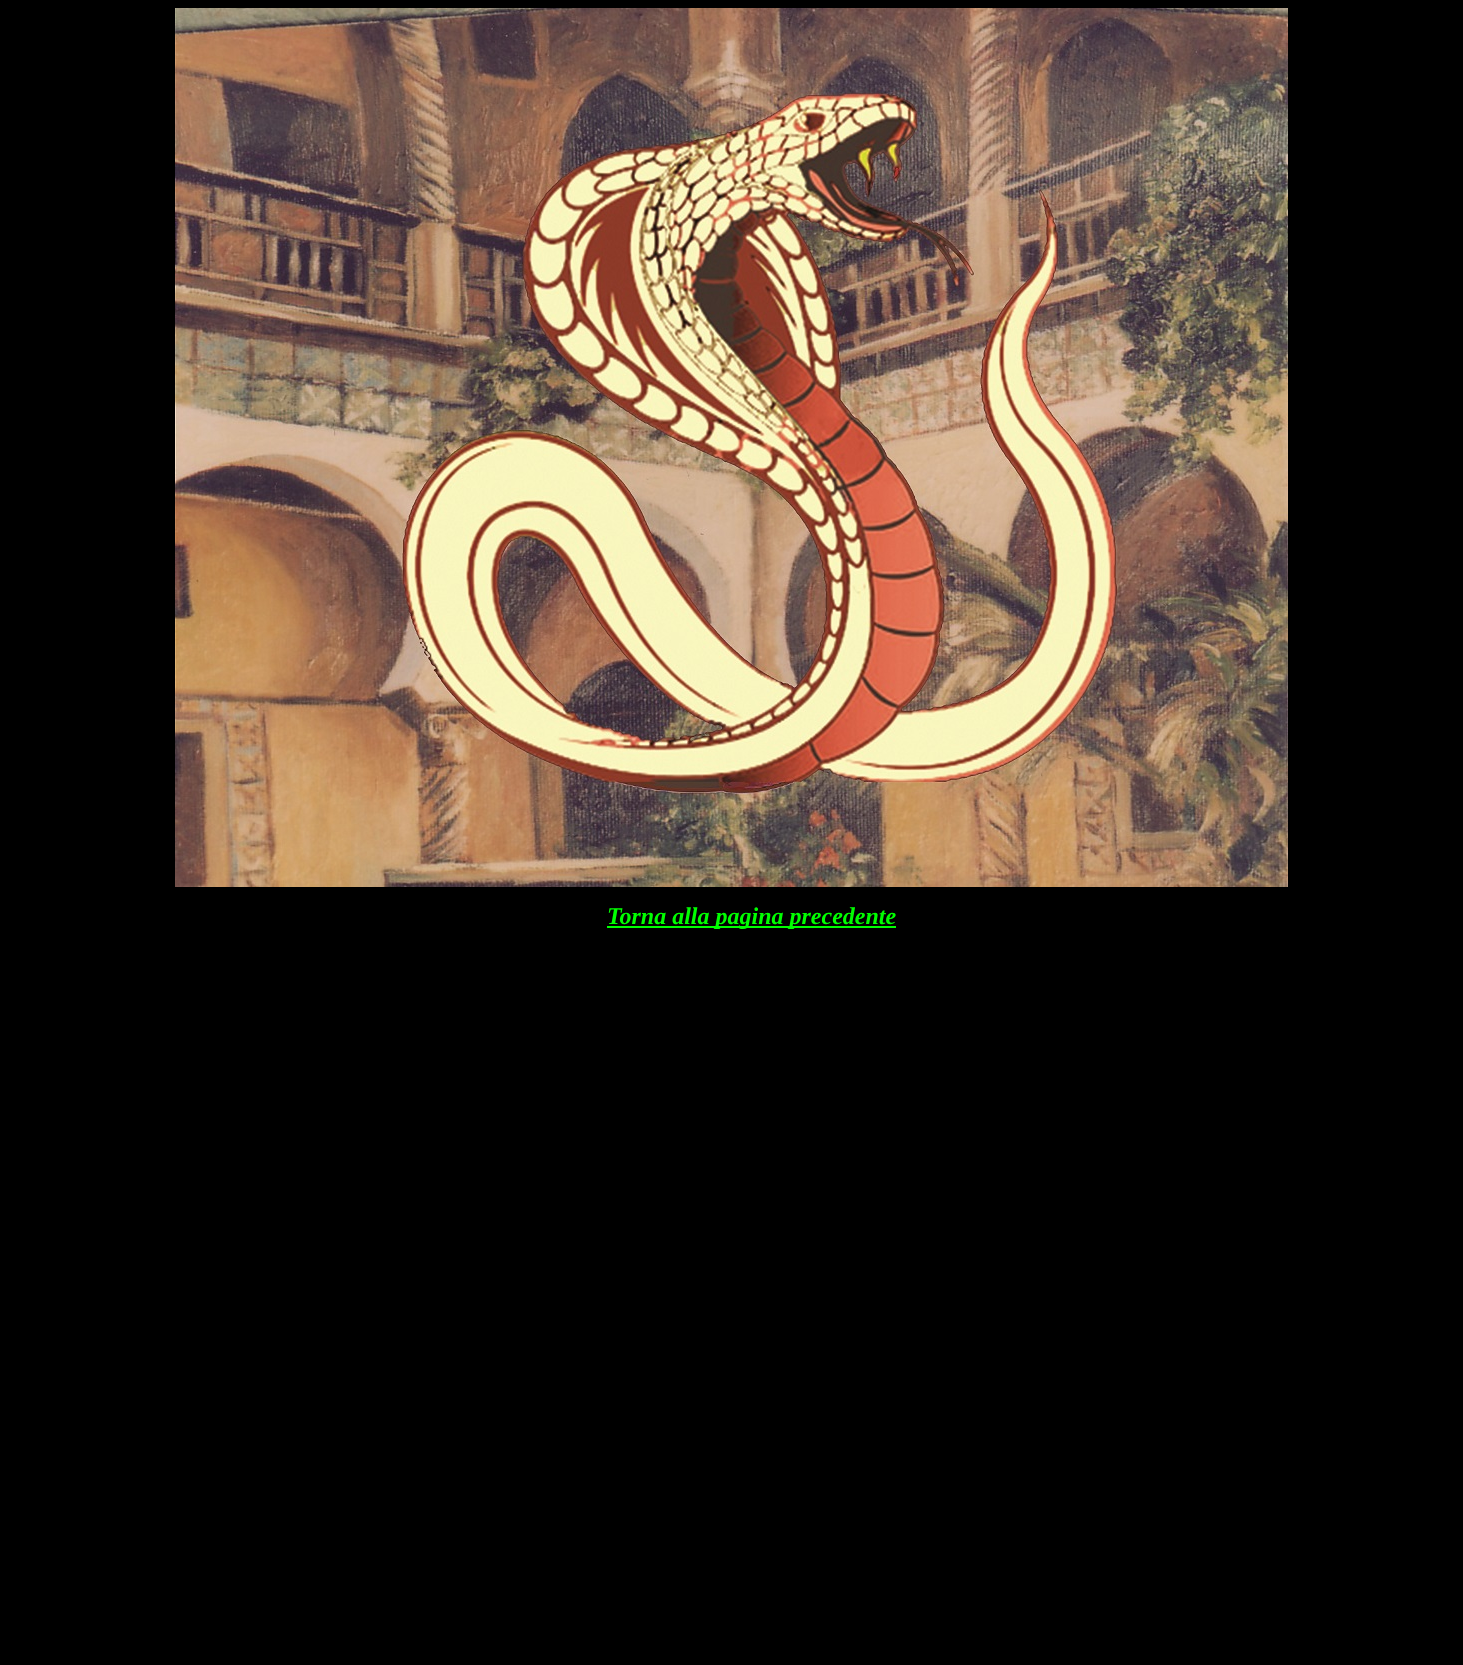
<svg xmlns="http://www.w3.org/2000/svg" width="1463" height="1665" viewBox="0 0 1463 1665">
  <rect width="100%" height="100%" fill="#000000"/>
  <image x="175" y="8" width="1113" height="879" href="img1.png"/>
  <rect x="607" y="926" width="289" height="2" fill="#00ff00"/>
  <text x="607" y="924" font-family="Liberation Serif" font-size="24" font-weight="bold" font-style="italic" fill="#00ff00">Torna alla pagina precedente</text>
</svg>
